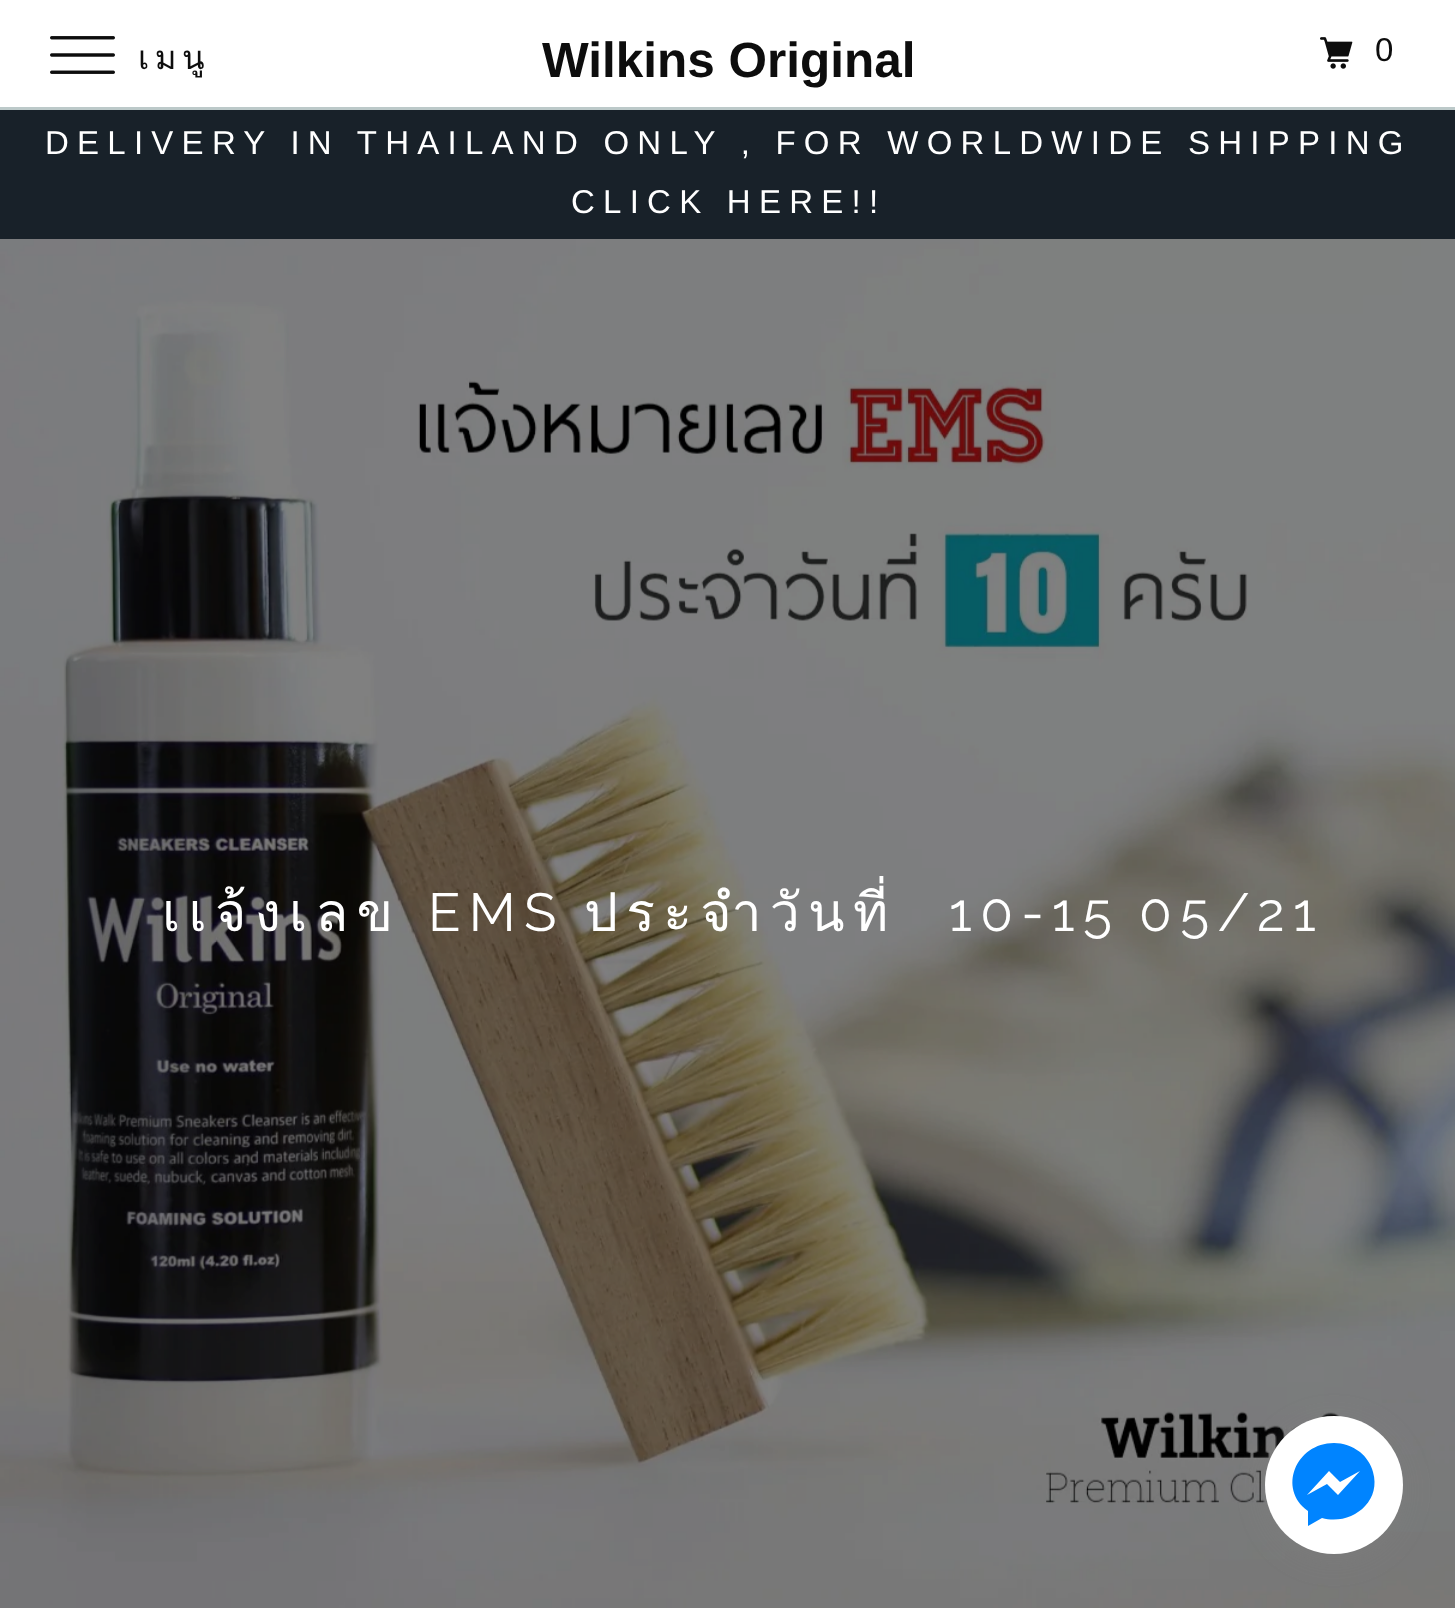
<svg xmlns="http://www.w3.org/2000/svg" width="1455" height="1608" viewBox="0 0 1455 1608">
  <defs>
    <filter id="blur1" x="-50%" y="-200%" width="200%" height="500%"><feGaussianBlur stdDeviation="15"/></filter>
  </defs>
  <rect width="100%" height="100%" fill="#ffffff"/>
  <rect x="0" y="107" width="1455" height="3" fill="#bcc9c9"/>
  <image x="50" y="36" width="65" height="38" href="img1.png"/>
  <text x="138" y="69" font-family="Loma" font-size="33" letter-spacing="5.5" fill="#0d0d0d">เมนู</text>
  <text x="542" y="77" font-family="Liberation Sans" font-size="49.5" font-weight="bold" fill="#0d0d0d">Wilkins Original</text>
  <image x="1320" y="37" width="33" height="32" href="img2.png"/>
  <text x="1375" y="61" font-family="Liberation Sans" font-size="33" letter-spacing="5.5" fill="#0d0d0d">0</text>
  <rect x="0" y="110" width="1455" height="129" fill="#182129"/>
  <text x="45" y="154" font-family="Liberation Sans" font-size="33" letter-spacing="8.25" fill="#ffffff">DELIVERY IN THAILAND ONLY , FOR WORLDWIDE SHIPPING</text>
  <text x="571" y="213" font-family="Liberation Sans" font-size="33" letter-spacing="8.25" fill="#ffffff">CLICK HERE!!</text>
  <image x="0" y="239" width="1455" height="1369" href="img3.png"/>
  <text x="162" y="931" font-family="Loma" font-size="53.5" letter-spacing="8.25" fill="#ffffff">เเจ้งเลข</text>
  <text x="428" y="931" font-family="Raleway" font-size="53.5" letter-spacing="8.25" fill="#ffffff">EMS</text>
  <text x="584" y="931" font-family="Loma" font-size="53.5" letter-spacing="8.25" fill="#ffffff">ประจำวันที่</text>
  <text x="949" y="931" word-spacing="-3" font-family="Raleway" font-size="53.5" letter-spacing="8.25" fill="#ffffff">10-15 05/21</text>
  <rect x="1265" y="1422" width="138" height="137" rx="68.5" fill="#808080" fill-opacity="0.4" filter="url(#blur1)"/>
  <circle cx="1334" cy="1485" r="69" fill="#ffffff"/>
  <path d="M1336 1419C1360 1419 1380 1431 1393 1449C1381 1429 1359 1416 1334 1416C1296 1416 1265 1447 1265 1485C1265 1507 1275 1527 1291 1539C1277 1527 1268 1509 1268 1488C1268 1450 1299 1419 1336 1419Z" fill="#ffffff" fill-opacity="0.15"/>
  <path d="M1334 1443C1296 1443 1277 1489 1308 1511V1526L1322 1518C1350 1526 1382 1503 1373 1472C1371 1464 1366 1457 1360 1452C1352 1446 1343 1443 1334 1443ZM1338 1495L1327 1484L1307 1495L1329 1471L1340 1482L1360 1471Z" fill="#0084ff"/>
</svg>
